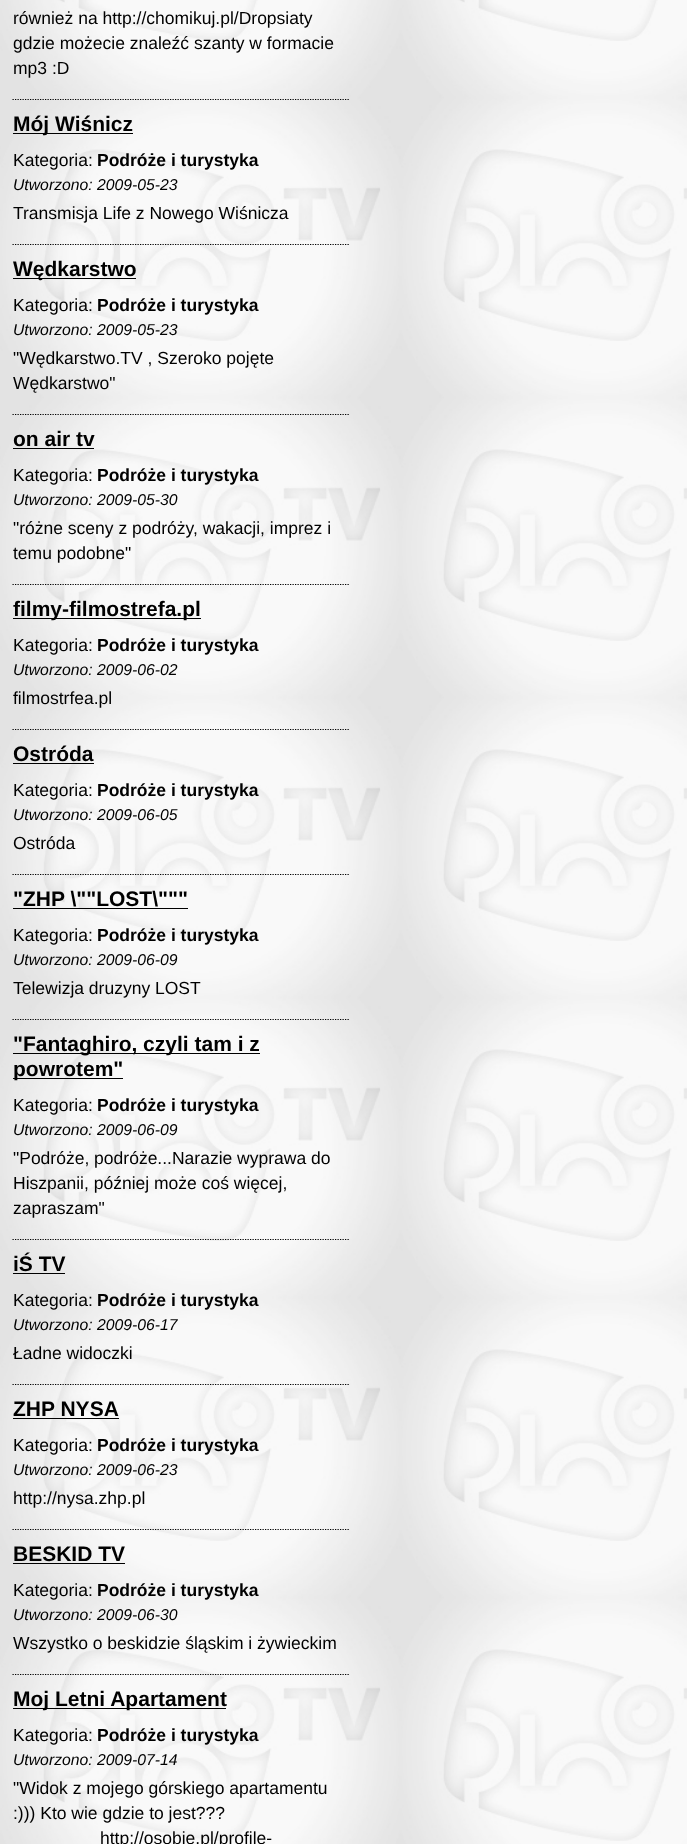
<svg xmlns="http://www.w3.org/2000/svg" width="687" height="1844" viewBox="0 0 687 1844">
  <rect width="100%" height="100%" fill="#ffffff"/>
  <image x="0" y="0" width="687" height="1844" href="img1.png"/>
  <text x="13" y="24" font-family="Liberation Sans" font-size="17.5" fill="#000000">również na http://chomikuj.pl/Dropsiaty</text>
  <text x="13" y="49" font-family="Liberation Sans" font-size="17.5" fill="#000000">gdzie możecie znaleźć szanty w formacie</text>
  <text x="13" y="74" font-family="Liberation Sans" font-size="17.5" fill="#000000">mp3 :D</text>
  <path d="M12.5 99.5H350" fill="none" stroke="#000000" stroke-width="1.2" stroke-dasharray="1.25 1.25"/>
  <rect x="13" y="133" width="120" height="1" fill="#000000"/>
  <text x="13" y="131" font-family="Liberation Sans" font-size="21" font-weight="bold" fill="#000000">Mój Wiśnicz</text>
  <text x="13" y="166" font-family="Liberation Sans" font-size="17.5" fill="#000000">Kategoria:</text>
  <text x="97" y="166" font-family="Liberation Sans" font-size="17.5" font-weight="bold" fill="#000000">Podróże i turystyka</text>
  <text x="13" y="190" font-family="Liberation Sans" font-size="15.75" font-style="italic" fill="#000000">Utworzono: 2009-05-23</text>
  <text x="13" y="219" font-family="Liberation Sans" font-size="17.5" fill="#000000">Transmisja Life z Nowego Wiśnicza</text>
  <path d="M12.5 244.5H350" fill="none" stroke="#000000" stroke-width="1.2" stroke-dasharray="1.25 1.25"/>
  <rect x="13" y="278" width="123" height="1" fill="#000000"/>
  <text x="13" y="276" font-family="Liberation Sans" font-size="21" font-weight="bold" fill="#000000">Wędkarstwo</text>
  <text x="13" y="311" font-family="Liberation Sans" font-size="17.5" fill="#000000">Kategoria:</text>
  <text x="97" y="311" font-family="Liberation Sans" font-size="17.5" font-weight="bold" fill="#000000">Podróże i turystyka</text>
  <text x="13" y="335" font-family="Liberation Sans" font-size="15.75" font-style="italic" fill="#000000">Utworzono: 2009-05-23</text>
  <text x="13" y="364" font-family="Liberation Sans" font-size="17.5" fill="#000000">"Wędkarstwo.TV , Szeroko pojęte</text>
  <text x="13" y="389" font-family="Liberation Sans" font-size="17.5" fill="#000000">Wędkarstwo"</text>
  <path d="M12.5 414.5H350" fill="none" stroke="#000000" stroke-width="1.2" stroke-dasharray="1.25 1.25"/>
  <text x="13" y="446" font-family="Liberation Sans" font-size="21" font-weight="bold" fill="#000000">on air tv</text>
  <rect x="13" y="448" width="81" height="1" fill="#000000"/>
  <text x="13" y="481" font-family="Liberation Sans" font-size="17.5" fill="#000000">Kategoria:</text>
  <text x="97" y="481" font-family="Liberation Sans" font-size="17.5" font-weight="bold" fill="#000000">Podróże i turystyka</text>
  <text x="13" y="505" font-family="Liberation Sans" font-size="15.75" font-style="italic" fill="#000000">Utworzono: 2009-05-30</text>
  <text x="13" y="534" font-family="Liberation Sans" font-size="17.5" fill="#000000">"różne sceny z podróży, wakacji, imprez i</text>
  <text x="13" y="559" font-family="Liberation Sans" font-size="17.5" fill="#000000">temu podobne"</text>
  <path d="M12.5 584.5H350" fill="none" stroke="#000000" stroke-width="1.2" stroke-dasharray="1.25 1.25"/>
  <rect x="13" y="618" width="188" height="1" fill="#000000"/>
  <text x="13" y="616" font-family="Liberation Sans" font-size="21" font-weight="bold" fill="#000000">filmy-filmostrefa.pl</text>
  <text x="13" y="651" font-family="Liberation Sans" font-size="17.5" fill="#000000">Kategoria:</text>
  <text x="97" y="651" font-family="Liberation Sans" font-size="17.5" font-weight="bold" fill="#000000">Podróże i turystyka</text>
  <text x="13" y="675" font-family="Liberation Sans" font-size="15.75" font-style="italic" fill="#000000">Utworzono: 2009-06-02</text>
  <text x="13" y="704" font-family="Liberation Sans" font-size="17.5" fill="#000000">filmostrfea.pl</text>
  <path d="M12.5 729.5H350" fill="none" stroke="#000000" stroke-width="1.2" stroke-dasharray="1.25 1.25"/>
  <text x="13" y="761" font-family="Liberation Sans" font-size="21" font-weight="bold" fill="#000000">Ostróda</text>
  <rect x="13" y="763" width="81" height="1" fill="#000000"/>
  <text x="13" y="796" font-family="Liberation Sans" font-size="17.5" fill="#000000">Kategoria:</text>
  <text x="97" y="796" font-family="Liberation Sans" font-size="17.5" font-weight="bold" fill="#000000">Podróże i turystyka</text>
  <text x="13" y="820" font-family="Liberation Sans" font-size="15.75" font-style="italic" fill="#000000">Utworzono: 2009-06-05</text>
  <text x="13" y="849" font-family="Liberation Sans" font-size="17.5" fill="#000000">Ostróda</text>
  <path d="M12.5 874.5H350" fill="none" stroke="#000000" stroke-width="1.2" stroke-dasharray="1.25 1.25"/>
  <text x="13" y="906" font-family="Liberation Sans" font-size="21" font-weight="bold" fill="#000000">"ZHP \""LOST\"""</text>
  <rect x="13" y="908" width="175" height="1" fill="#000000"/>
  <text x="13" y="941" font-family="Liberation Sans" font-size="17.5" fill="#000000">Kategoria:</text>
  <text x="97" y="941" font-family="Liberation Sans" font-size="17.5" font-weight="bold" fill="#000000">Podróże i turystyka</text>
  <text x="13" y="965" font-family="Liberation Sans" font-size="15.75" font-style="italic" fill="#000000">Utworzono: 2009-06-09</text>
  <text x="13" y="994" font-family="Liberation Sans" font-size="17.5" fill="#000000">Telewizja druzyny LOST</text>
  <path d="M12.5 1019.5H350" fill="none" stroke="#000000" stroke-width="1.2" stroke-dasharray="1.25 1.25"/>
  <rect x="13" y="1053" width="247" height="1" fill="#000000"/>
  <text x="13" y="1051" font-family="Liberation Sans" font-size="21" font-weight="bold" fill="#000000">"Fantaghiro, czyli tam i z</text>
  <rect x="13" y="1078" width="110" height="1" fill="#000000"/>
  <text x="13" y="1076" font-family="Liberation Sans" font-size="21" font-weight="bold" fill="#000000">powrotem"</text>
  <text x="13" y="1111" font-family="Liberation Sans" font-size="17.5" fill="#000000">Kategoria:</text>
  <text x="97" y="1111" font-family="Liberation Sans" font-size="17.5" font-weight="bold" fill="#000000">Podróże i turystyka</text>
  <text x="13" y="1135" font-family="Liberation Sans" font-size="15.75" font-style="italic" fill="#000000">Utworzono: 2009-06-09</text>
  <text x="13" y="1164" font-family="Liberation Sans" font-size="17.5" fill="#000000">"Podróże, podróże...Narazie wyprawa do</text>
  <text x="13" y="1189" font-family="Liberation Sans" font-size="17.5" fill="#000000">Hiszpanii, później może coś więcej,</text>
  <text x="13" y="1214" font-family="Liberation Sans" font-size="17.5" fill="#000000">zapraszam"</text>
  <path d="M12.5 1239.5H350" fill="none" stroke="#000000" stroke-width="1.2" stroke-dasharray="1.25 1.25"/>
  <text x="13" y="1271" font-family="Liberation Sans" font-size="21" font-weight="bold" fill="#000000">iŚ TV</text>
  <rect x="13" y="1273" width="52" height="1" fill="#000000"/>
  <text x="13" y="1306" font-family="Liberation Sans" font-size="17.5" fill="#000000">Kategoria:</text>
  <text x="97" y="1306" font-family="Liberation Sans" font-size="17.5" font-weight="bold" fill="#000000">Podróże i turystyka</text>
  <text x="13" y="1330" font-family="Liberation Sans" font-size="15.75" font-style="italic" fill="#000000">Utworzono: 2009-06-17</text>
  <text x="13" y="1359" font-family="Liberation Sans" font-size="17.5" fill="#000000">Ładne widoczki</text>
  <path d="M12.5 1384.5H350" fill="none" stroke="#000000" stroke-width="1.2" stroke-dasharray="1.25 1.25"/>
  <text x="13" y="1416" font-family="Liberation Sans" font-size="21" font-weight="bold" fill="#000000">ZHP NYSA</text>
  <rect x="13" y="1418" width="106" height="1" fill="#000000"/>
  <text x="13" y="1451" font-family="Liberation Sans" font-size="17.5" fill="#000000">Kategoria:</text>
  <text x="97" y="1451" font-family="Liberation Sans" font-size="17.5" font-weight="bold" fill="#000000">Podróże i turystyka</text>
  <text x="13" y="1475" font-family="Liberation Sans" font-size="15.75" font-style="italic" fill="#000000">Utworzono: 2009-06-23</text>
  <text x="13" y="1504" font-family="Liberation Sans" font-size="17.5" fill="#000000">http://nysa.zhp.pl</text>
  <path d="M12.5 1529.5H350" fill="none" stroke="#000000" stroke-width="1.2" stroke-dasharray="1.25 1.25"/>
  <text x="13" y="1561" font-family="Liberation Sans" font-size="21" font-weight="bold" fill="#000000">BESKID TV</text>
  <rect x="13" y="1563" width="112" height="1" fill="#000000"/>
  <text x="13" y="1596" font-family="Liberation Sans" font-size="17.5" fill="#000000">Kategoria:</text>
  <text x="97" y="1596" font-family="Liberation Sans" font-size="17.5" font-weight="bold" fill="#000000">Podróże i turystyka</text>
  <text x="13" y="1620" font-family="Liberation Sans" font-size="15.75" font-style="italic" fill="#000000">Utworzono: 2009-06-30</text>
  <text x="13" y="1649" font-family="Liberation Sans" font-size="17.5" fill="#000000">Wszystko o beskidzie śląskim i żywieckim</text>
  <path d="M12.5 1674.5H350" fill="none" stroke="#000000" stroke-width="1.2" stroke-dasharray="1.25 1.25"/>
  <rect x="13" y="1708" width="213" height="1" fill="#000000"/>
  <text x="13" y="1706" font-family="Liberation Sans" font-size="21" font-weight="bold" fill="#000000">Moj Letni Apartament</text>
  <text x="13" y="1741" font-family="Liberation Sans" font-size="17.5" fill="#000000">Kategoria:</text>
  <text x="97" y="1741" font-family="Liberation Sans" font-size="17.5" font-weight="bold" fill="#000000">Podróże i turystyka</text>
  <text x="13" y="1765" font-family="Liberation Sans" font-size="15.75" font-style="italic" fill="#000000">Utworzono: 2009-07-14</text>
  <text x="13" y="1794" font-family="Liberation Sans" font-size="17.5" fill="#000000">"Widok z mojego górskiego apartamentu</text>
  <text x="13" y="1819" font-family="Liberation Sans" font-size="17.5" fill="#000000">:))) Kto wie gdzie to jest???</text>
  <text x="100" y="1844" font-family="Liberation Sans" font-size="17.5" fill="#000000">http://osobie.pl/profile-</text>
</svg>
